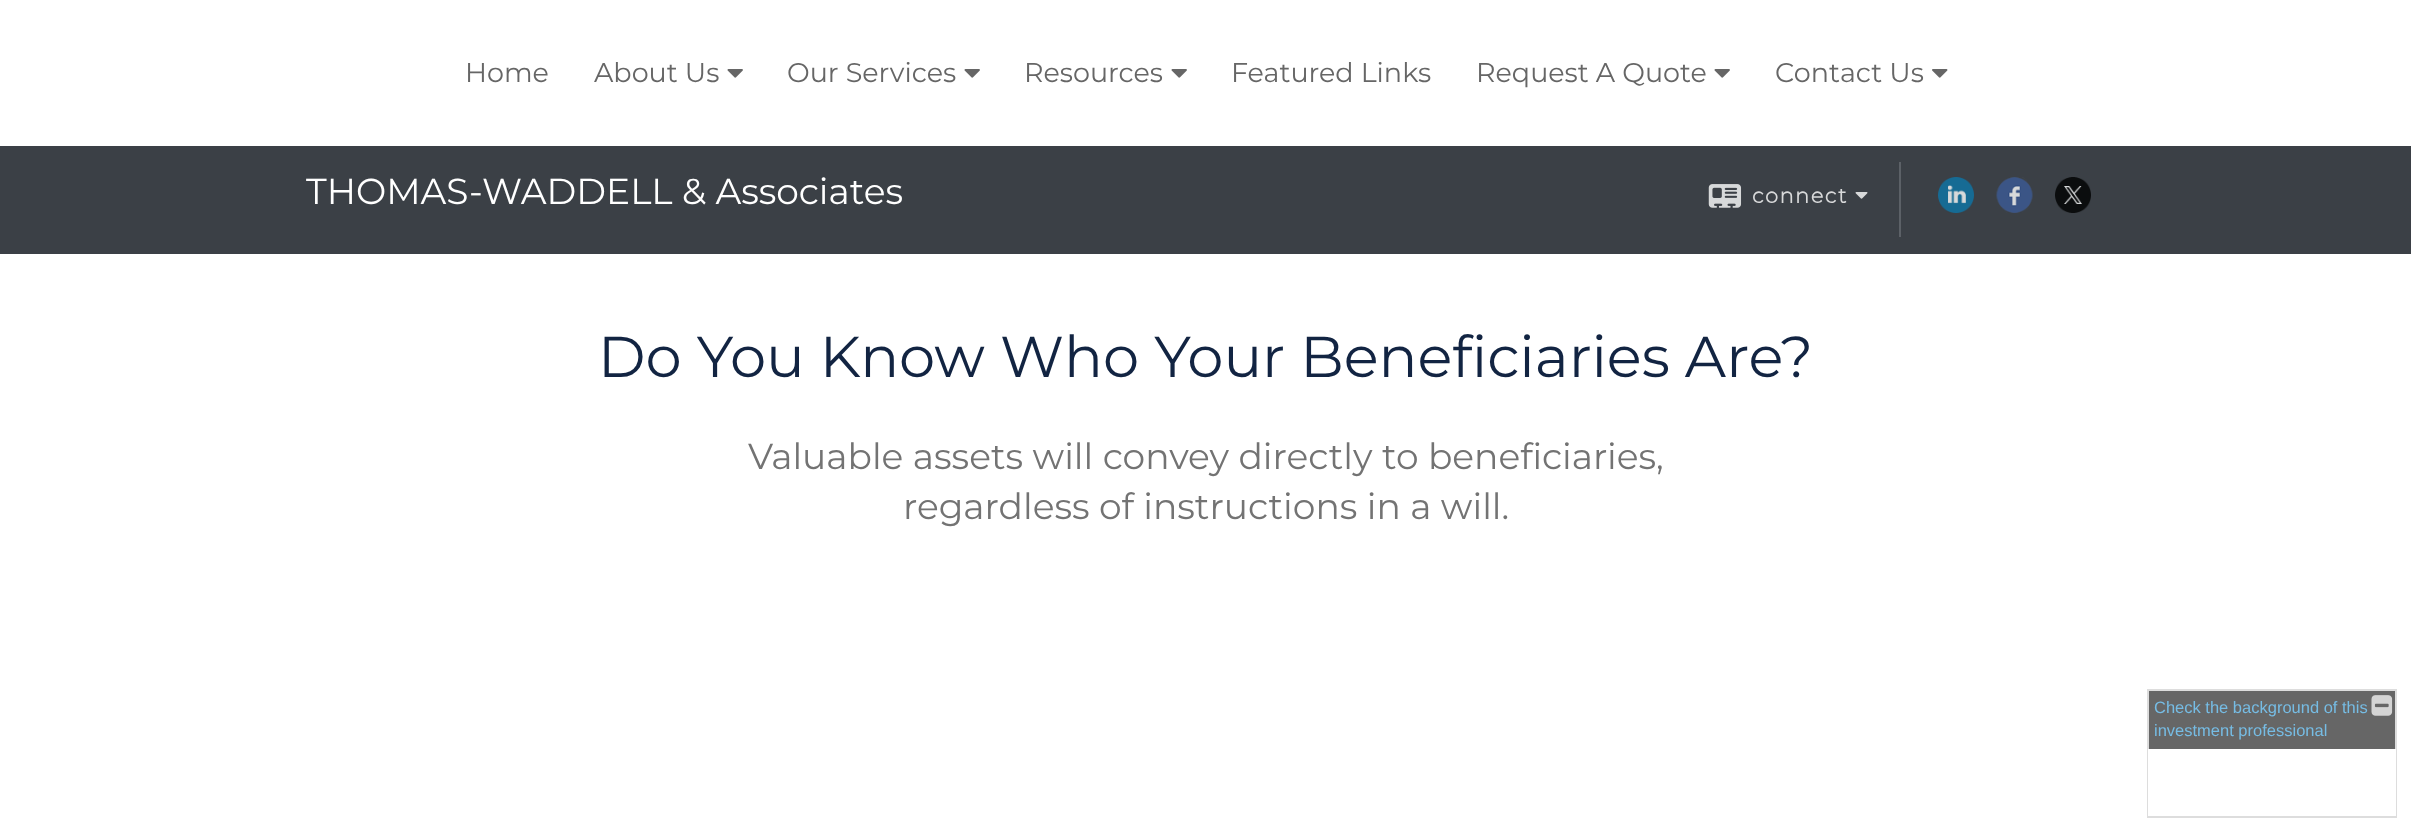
<svg xmlns="http://www.w3.org/2000/svg" width="2411" height="839" viewBox="0 0 2411 839">
  <rect width="100%" height="100%" fill="#3b4046"/>
  <rect x="0" y="0" width="2411" height="146" fill="#ffffff"/>
  <text x="465" y="82" font-family="Montserrat" font-size="27" fill="#666666">Home</text>
  <text x="594" y="82" font-family="Montserrat" font-size="27" fill="#666666">About Us</text>
  <image x="727" y="69" width="16" height="9" href="img1.png"/>
  <text x="787" y="82" font-family="Montserrat" font-size="27" fill="#666666">Our Services</text>
  <image x="964" y="69" width="16" height="9" href="img1.png"/>
  <text x="1024" y="82" font-family="Montserrat" font-size="27" fill="#666666">Resources</text>
  <image x="1171" y="69" width="16" height="9" href="img1.png"/>
  <text x="1231" y="82" font-family="Montserrat" font-size="27" fill="#666666">Featured Links</text>
  <text x="1476" y="82" font-family="Montserrat" font-size="27" fill="#666666">Request A Quote</text>
  <image x="1714" y="69" width="16" height="9" href="img1.png"/>
  <text x="1775" y="82" font-family="Montserrat" font-size="27" fill="#666666">Contact Us</text>
  <image x="1932" y="69" width="16" height="9" href="img2.png"/>
  <text x="306" y="204" font-family="Montserrat" font-size="36" fill="#ffffff">THOMAS-WADDELL &amp; Associates</text>
  <image x="1708" y="184" width="34" height="24" href="img3.png"/>
  <text x="1752" y="203" font-family="Montserrat" font-size="21" font-weight="bold" letter-spacing="1.5" fill="#d8d9da">connect</text>
  <image x="1855" y="192" width="13" height="7" href="img4.png"/>
  <rect x="1899" y="162" width="2" height="75" fill="#5c6167"/>
  <image x="1938" y="177" width="36" height="36" href="img5.png"/>
  <image x="1996" y="177" width="37" height="36" href="img6.png"/>
  <image x="2055" y="177" width="36" height="36" href="img7.png"/>
  <rect x="0" y="254" width="2411" height="585" fill="#ffffff"/>
  <text x="598" y="377" font-family="Montserrat" font-size="57.6" fill="#122442">Do You Know Who Your Beneficiaries Are?</text>
  <text x="748" y="469" font-family="Montserrat" font-size="36" fill="#737373">Valuable assets will convey directly to beneficiaries,</text>
  <text x="903" y="519" font-family="Montserrat" font-size="36" fill="#737373">regardless of instructions in a will.</text>
  <rect x="2149" y="691" width="246" height="58" fill="#666666"/>
  <rect x="2148" y="690" width="248" height="127" fill="none" stroke="#dddddd" stroke-width="2"/>
  <text x="2154" y="713" font-family="Liberation Sans" font-size="16.5" fill="#76bce4">Check the background of this</text>
  <text x="2154" y="736" font-family="Liberation Sans" font-size="16.5" fill="#76bce4">investment professional</text>
  <image x="2371" y="695" width="22" height="21" href="img8.png"/>
  <rect x="2148" y="749" width="248" height="67" fill="#ffffff"/>
</svg>
